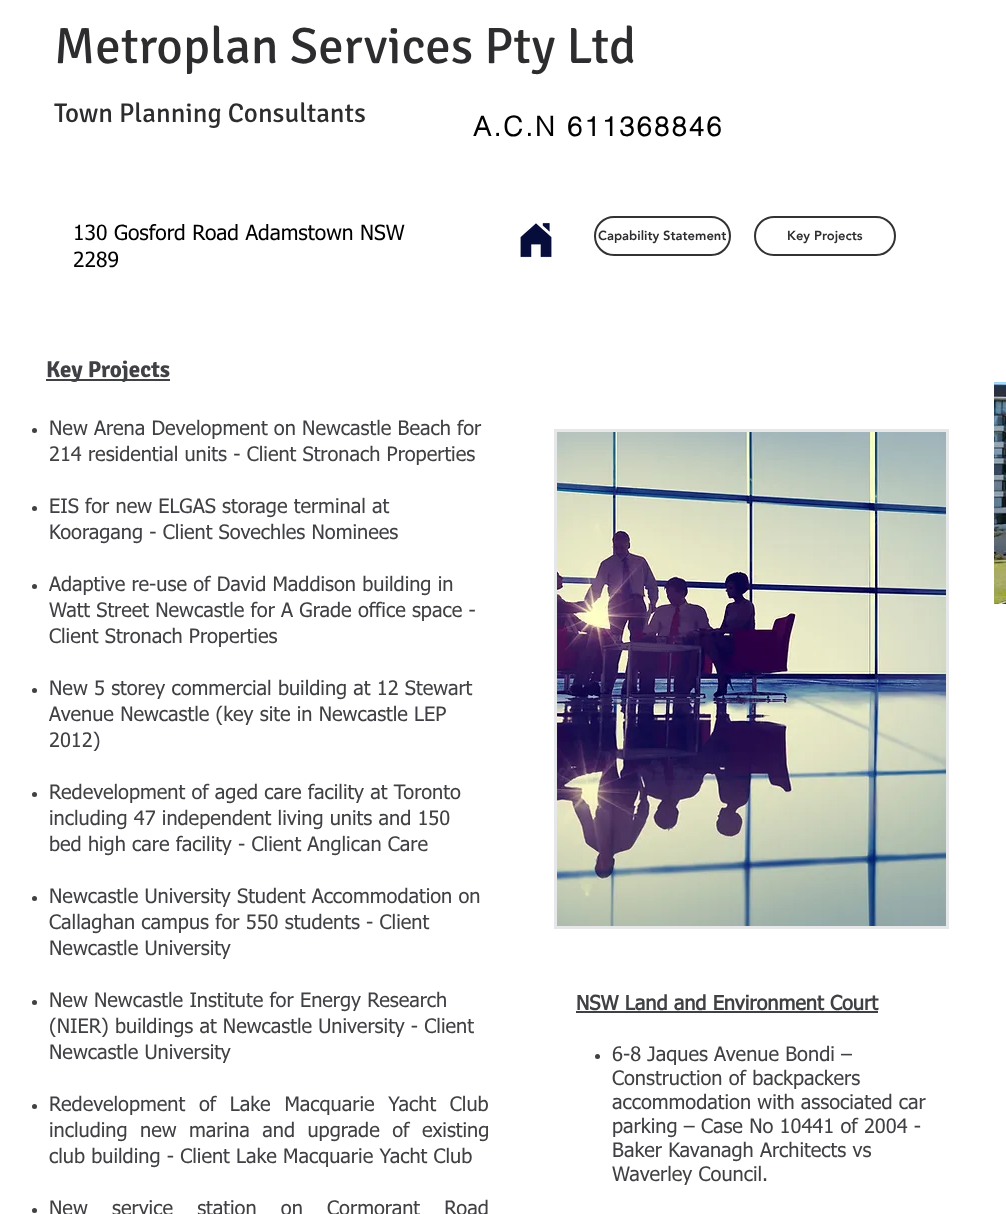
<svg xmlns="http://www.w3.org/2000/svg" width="1006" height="1214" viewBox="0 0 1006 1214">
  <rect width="100%" height="100%" fill="#ffffff"/>
  <text x="54" y="63" font-family="Signika" font-size="51" fill="#2d2d2f">Metroplan Services Pty Ltd</text>
  <text x="54" y="122" font-family="Signika" font-size="27" fill="#2d2d2f">Town Planning Consultants</text>
  <text x="473" y="136" font-family="helvetica" font-size="27" font-weight="bold" letter-spacing="2.4" fill="#000000">A.C.N 611368846</text>
  <text x="73" y="240" font-family="tahoma" font-size="21" fill="#000000">130 Gosford Road Adamstown NSW</text>
  <text x="73" y="267" font-family="tahoma" font-size="21" fill="#000000">2289</text>
  <image x="520" y="222" width="32" height="36" href="img1.png"/>
  <rect x="595" y="217" width="135" height="38" rx="19" fill="none" stroke="#323232" stroke-width="2"/>
  <text x="598" y="240" font-family="'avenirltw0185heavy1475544'" font-size="13" font-weight="900" fill="#2d2d2f">Capability Statement</text>
  <rect x="755" y="217" width="140" height="38" rx="19" fill="none" stroke="#323232" stroke-width="2"/>
  <text x="787" y="240" font-family="'avenirltw0185heavy1475544'" font-size="13" font-weight="900" fill="#2d2d2f">Key Projects</text>
  <rect x="46" y="379" width="124" height="2" fill="#404144"/>
  <text x="46" y="377" font-family="Signika" font-size="23" font-weight="bold" fill="#404144">Key Projects</text>
  <circle cx="34.5" cy="430.5" r="2.5" fill="#404144"/>
  <text x="49" y="435" font-family="tahoma" font-size="20" fill="#404144">New Arena Development on Newcastle Beach for</text>
  <text x="49" y="461" font-family="tahoma" font-size="20" fill="#404144">214 residential units - Client Stronach Properties</text>
  <circle cx="34.5" cy="508.5" r="2.5" fill="#404144"/>
  <text x="49" y="513" font-family="tahoma" font-size="20" fill="#404144">EIS for new ELGAS storage terminal at</text>
  <text x="49" y="539" font-family="tahoma" font-size="20" fill="#404144">Kooragang - Client Sovechles Nominees</text>
  <circle cx="34.5" cy="586.5" r="2.5" fill="#404144"/>
  <text x="49" y="591" font-family="tahoma" font-size="20" fill="#404144">Adaptive re-use of David Maddison building in</text>
  <text x="49" y="617" font-family="tahoma" font-size="20" fill="#404144">Watt Street Newcastle for A Grade office space -</text>
  <text x="49" y="643" font-family="tahoma" font-size="20" fill="#404144">Client Stronach Properties</text>
  <circle cx="34.5" cy="690.5" r="2.5" fill="#404144"/>
  <text x="49" y="695" font-family="tahoma" font-size="20" fill="#404144">New 5 storey commercial building at 12 Stewart</text>
  <text x="49" y="721" font-family="tahoma" font-size="20" fill="#404144">Avenue Newcastle (key site in Newcastle LEP</text>
  <text x="49" y="747" font-family="tahoma" font-size="20" fill="#404144">2012)</text>
  <circle cx="34.5" cy="794.5" r="2.5" fill="#404144"/>
  <text x="49" y="799" font-family="tahoma" font-size="20" fill="#404144">Redevelopment of aged care facility at Toronto</text>
  <text x="49" y="825" font-family="tahoma" font-size="20" fill="#404144">including 47 independent living units and 150</text>
  <text x="49" y="851" font-family="tahoma" font-size="20" fill="#404144">bed high care facility - Client Anglican Care</text>
  <circle cx="34.5" cy="898.5" r="2.5" fill="#404144"/>
  <text x="49" y="903" font-family="tahoma" font-size="20" fill="#404144">Newcastle University Student Accommodation on</text>
  <text x="49" y="929" font-family="tahoma" font-size="20" fill="#404144">Callaghan campus for 550 students - Client</text>
  <text x="49" y="955" font-family="tahoma" font-size="20" fill="#404144">Newcastle University</text>
  <circle cx="34.5" cy="1002.5" r="2.5" fill="#404144"/>
  <text x="49" y="1007" font-family="tahoma" font-size="20" fill="#404144">New Newcastle Institute for Energy Research</text>
  <text x="49" y="1033" font-family="tahoma" font-size="20" fill="#404144">(NIER) buildings at Newcastle University - Client</text>
  <text x="49" y="1059" font-family="tahoma" font-size="20" fill="#404144">Newcastle University</text>
  <circle cx="34.5" cy="1106.5" r="2.5" fill="#404144"/>
  <text x="49" y="1111" word-spacing="7.5" font-family="tahoma" font-size="20" fill="#404144">Redevelopment of Lake Macquarie Yacht Club</text>
  <text x="49" y="1137" word-spacing="6.25" font-family="tahoma" font-size="20" fill="#404144">including new marina and upgrade of existing</text>
  <text x="49" y="1163" font-family="tahoma" font-size="20" fill="#404144">club building - Client Lake Macquarie Yacht Club</text>
  <circle cx="34.5" cy="1210.5" r="2.5" fill="#404144"/>
  <text x="49" y="1215" word-spacing="18" font-family="tahoma" font-size="20" fill="#404144">New service station on Cormorant Road</text>
  <rect x="555.5" y="430.5" width="392" height="497" fill="none" stroke="#e6e7e9" stroke-width="3"/>
  <image x="557" y="432" width="389" height="494" href="img2.png"/>
  <image x="994" y="382" width="12" height="222" href="img3.png"/>
  <text x="576" y="1010" font-family="tahoma" font-size="20" font-weight="bold" fill="#404144">NSW Land and Environment Court</text>
  <rect x="576" y="1011" width="302" height="2" fill="#404144"/>
  <circle cx="597.5" cy="1056.5" r="2.5" fill="#404144"/>
  <text x="612" y="1061" font-family="tahoma" font-size="20" fill="#404144">6-8 Jaques Avenue Bondi –</text>
  <text x="612" y="1085" font-family="tahoma" font-size="20" fill="#404144">Construction of backpackers</text>
  <text x="612" y="1109" font-family="tahoma" font-size="20" fill="#404144">accommodation with associated car</text>
  <text x="612" y="1133" font-family="tahoma" font-size="20" fill="#404144">parking – Case No 10441 of 2004 -</text>
  <text x="612" y="1157" font-family="tahoma" font-size="20" fill="#404144">Baker Kavanagh Architects vs</text>
  <text x="612" y="1181" font-family="tahoma" font-size="20" fill="#404144">Waverley Council.</text>
</svg>
